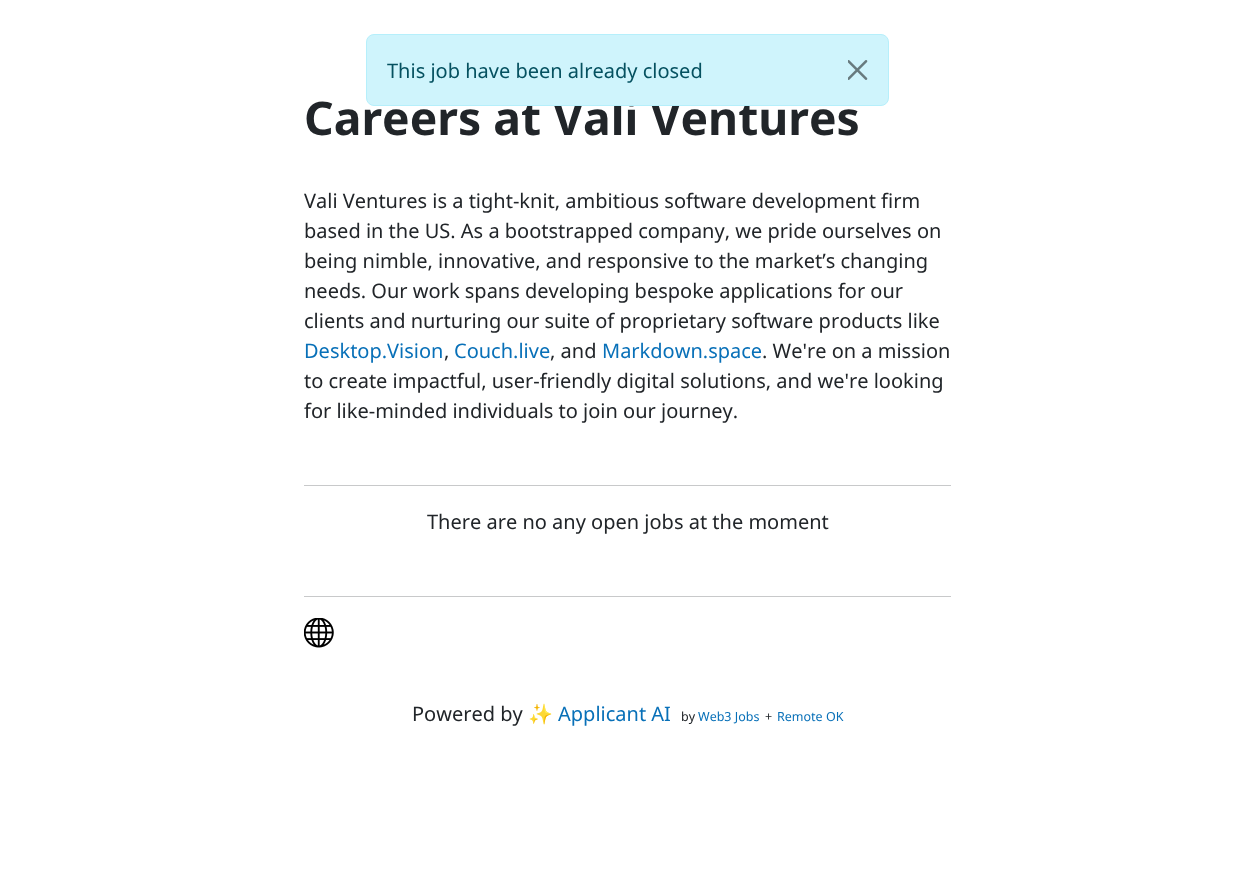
<svg xmlns="http://www.w3.org/2000/svg" width="1255" height="873" viewBox="0 0 1255 873">
  <style>*{font-kerning:none!important;font-variant-ligatures:none!important}</style>
  <rect width="100%" height="100%" fill="#ffffff"/>
  <text x="304" y="135" font-family="Noto Sans" font-size="46.25" font-weight="bold" fill="#212529">Careers at Vali Ventures</text>
  <rect x="366.5" y="34.5" width="522" height="71" rx="7.5" fill="#cff4fc" stroke="#b6effb"/>
  <text x="387" y="78" font-family="Noto Sans" font-size="20" fill="#055160">This job have been already closed</text>
  <image x="848" y="60" width="20" height="20" href="img1.png"/>
  <text x="304" y="208" font-family="Noto Sans" font-size="20" fill="#212529">Vali Ventures is a tight-knit, ambitious software development firm</text>
  <text x="304" y="238" font-family="Noto Sans" font-size="20" fill="#212529">based in the US. As a bootstrapped company, we pride ourselves on</text>
  <text x="304" y="268" font-family="Noto Sans" font-size="20" fill="#212529">being nimble, innovative, and responsive to the market’s changing</text>
  <text x="304" y="298" font-family="Noto Sans" font-size="20" fill="#212529">needs. Our work spans developing bespoke applications for our</text>
  <text x="304" y="328" font-family="Noto Sans" font-size="20" fill="#212529">clients and nurturing our suite of proprietary software products like</text>
  <text x="304" y="358" font-family="Noto Sans" font-size="20" fill="#0870b8">Desktop.Vision</text>
  <text x="444" y="358" font-family="Noto Sans" font-size="20" fill="#212529">,</text>
  <text x="454" y="358" font-family="Noto Sans" font-size="20" fill="#0870b8">Couch.live</text>
  <text x="550" y="358" font-family="Noto Sans" font-size="20" fill="#212529">, and</text>
  <text x="602" y="358" font-family="Noto Sans" font-size="20" fill="#0870b8">Markdown.space</text>
  <text x="762" y="358" font-family="Noto Sans" font-size="20" fill="#212529">. We're on a mission</text>
  <text x="304" y="388" font-family="Noto Sans" font-size="20" fill="#212529">to create impactful, user-friendly digital solutions, and we're looking</text>
  <text x="304" y="418" font-family="Noto Sans" font-size="20" fill="#212529">for like-minded individuals to join our journey.</text>
  <rect x="304" y="485" width="647" height="1" fill="#c8c9ca"/>
  <text x="427" y="529" font-family="Noto Sans" font-size="20" fill="#212529">There are no any open jobs at the moment</text>
  <rect x="304" y="596" width="647" height="1" fill="#c8c9ca"/>
  <image x="304" y="618" width="30" height="30" href="img2.png"/>
  <text x="412" y="721" font-family="Noto Sans" font-size="20" fill="#212529">Powered by</text>
  <text x="528" y="721" font-family="Noto Color Emoji" font-size="20" fill="#0870b8">✨</text>
  <text x="558" y="721" font-family="Noto Sans" font-size="20" fill="#0870b8">Applicant AI</text>
  <text x="681" y="721" font-family="Noto Sans" font-size="12.5" fill="#212529">by</text>
  <text x="698" y="721" font-family="Noto Sans" font-size="12.5" fill="#0870b8">Web3 Jobs</text>
  <text x="765" y="721" font-family="Noto Sans" font-size="12.5" fill="#212529">+</text>
  <text x="777" y="721" font-family="Noto Sans" font-size="12.5" fill="#0870b8">Remote OK</text>
</svg>
